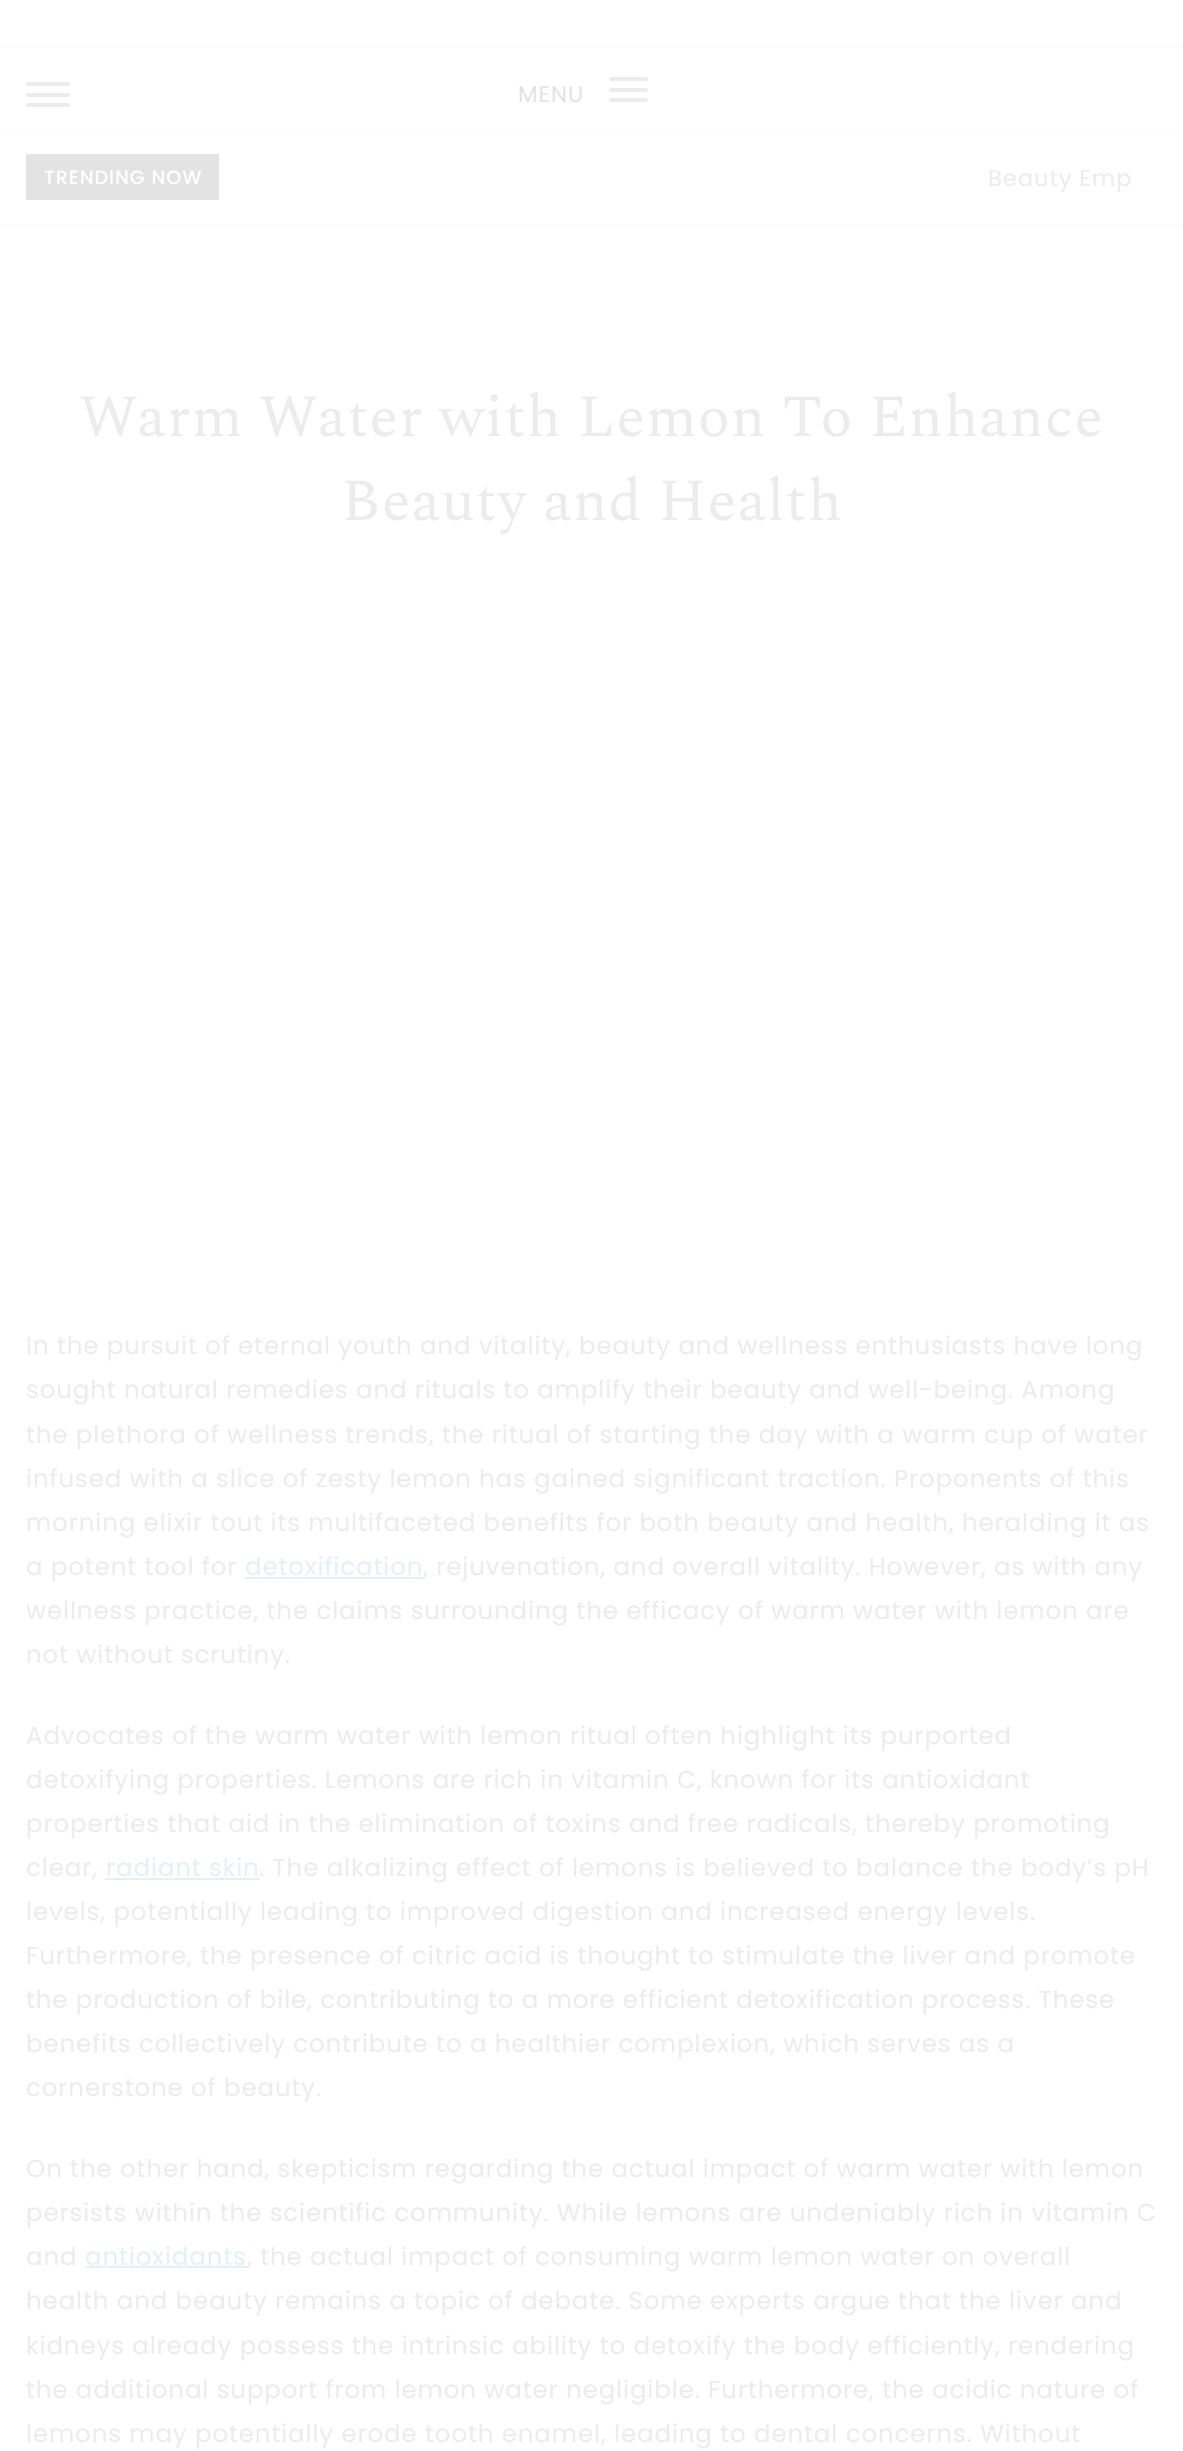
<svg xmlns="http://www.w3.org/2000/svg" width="1183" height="2451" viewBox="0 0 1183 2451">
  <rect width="100%" height="100%" fill="#ffffff"/>
  <rect x="0" y="131" width="1183" height="2" fill="#fcfcfc"/>
  <rect x="0" y="46" width="1183" height="2" fill="#fcfcfc"/>
  <rect x="26" y="82" width="44" height="4" rx="2" fill="#ececec"/>
  <rect x="26" y="93" width="44" height="4" rx="2" fill="#ececec"/>
  <rect x="26" y="103" width="44" height="4" rx="2" fill="#ececec"/>
  <text x="518" y="102" font-family="Poppins" font-size="22.75" letter-spacing="0.88" fill="#e3e3e3">MENU</text>
  <rect x="609" y="77" width="39" height="4" rx="2" fill="#ececec"/>
  <rect x="609" y="88" width="39" height="4" rx="2" fill="#ececec"/>
  <rect x="609" y="98" width="39" height="4" rx="2" fill="#ececec"/>
  <rect x="0" y="224" width="1183" height="2" fill="#fcfcfc"/>
  <rect x="26" y="154" width="193" height="46" fill="#e3e3e3"/>
  <text x="44" y="184" font-family="Poppins" font-size="19.25" font-weight="500" letter-spacing="0.88" fill="#ffffff">TRENDING NOW</text>
  <text x="988" y="186" font-family="Poppins" font-size="22.75" letter-spacing="0.88" fill="#ececec">Beauty Emp</text>
  <text x="79" y="436" font-family="Spectral" font-size="59.5" letter-spacing="0.88" fill="#ececec">Warm Water with Lemon To Enhance</text>
  <text x="341" y="520" font-family="Spectral" font-size="59.5" letter-spacing="0.88" fill="#ececec">Beauty and Health</text>
  <text x="26" y="1354" font-family="Poppins" font-size="24.5" letter-spacing="0.88" fill="#ececec">In the pursuit of eternal youth and vitality, beauty and wellness enthusiasts have long</text>
  <text x="26" y="1398" font-family="Poppins" font-size="24.5" letter-spacing="0.88" fill="#ececec">sought natural remedies and rituals to amplify their beauty and well-being. Among</text>
  <text x="26" y="1443" font-family="Poppins" font-size="24.5" letter-spacing="0.88" fill="#ececec">the plethora of wellness trends, the ritual of starting the day with a warm cup of water</text>
  <text x="26" y="1487" font-family="Poppins" font-size="24.5" letter-spacing="0.88" fill="#ececec">infused with a slice of zesty lemon has gained significant traction. Proponents of this</text>
  <text x="26" y="1531" font-family="Poppins" font-size="24.5" letter-spacing="0.88" fill="#ececec">morning elixir tout its multifaceted benefits for both beauty and health, heralding it as</text>
  <text x="26" y="1575" font-family="Poppins" font-size="24.5" letter-spacing="0.88" fill="#ececec">a potent tool for</text>
  <text x="245" y="1575" font-family="Poppins" font-size="24.5" letter-spacing="0.88" fill="#e3f1f6">detoxification</text>
  <rect x="245" y="1577" width="179" height="2" fill="#e3f1f6"/>
  <text x="423" y="1575" font-family="Poppins" font-size="24.5" letter-spacing="0.88" fill="#ececec">, rejuvenation, and overall vitality. However, as with any</text>
  <text x="26" y="1619" font-family="Poppins" font-size="24.5" letter-spacing="0.88" fill="#ececec">wellness practice, the claims surrounding the efficacy of warm water with lemon are</text>
  <text x="26" y="1663" font-family="Poppins" font-size="24.5" letter-spacing="0.88" fill="#ececec">not without scrutiny.</text>
  <text x="26" y="1744" font-family="Poppins" font-size="24.5" letter-spacing="0.88" fill="#ececec">Advocates of the warm water with lemon ritual often highlight its purported</text>
  <text x="26" y="1788" font-family="Poppins" font-size="24.5" letter-spacing="0.88" fill="#ececec">detoxifying properties. Lemons are rich in vitamin C, known for its antioxidant</text>
  <text x="26" y="1832" font-family="Poppins" font-size="24.5" letter-spacing="0.88" fill="#ececec">properties that aid in the elimination of toxins and free radicals, thereby promoting</text>
  <text x="26" y="1876" font-family="Poppins" font-size="24.5" letter-spacing="0.88" fill="#ececec">clear,</text>
  <text x="106" y="1876" font-family="Poppins" font-size="24.5" letter-spacing="0.88" fill="#e3f1f6">radiant skin</text>
  <rect x="105" y="1878" width="154" height="2" fill="#e3f1f6"/>
  <text x="259" y="1876" font-family="Poppins" font-size="24.5" letter-spacing="0.88" fill="#ececec">. The alkalizing effect of lemons is believed to balance the body’s pH</text>
  <text x="26" y="1920" font-family="Poppins" font-size="24.5" letter-spacing="0.88" fill="#ececec">levels, potentially leading to improved digestion and increased energy levels.</text>
  <text x="26" y="1964" font-family="Poppins" font-size="24.5" letter-spacing="0.88" fill="#ececec">Furthermore, the presence of citric acid is thought to stimulate the liver and promote</text>
  <text x="26" y="2008" font-family="Poppins" font-size="24.5" letter-spacing="0.88" fill="#ececec">the production of bile, contributing to a more efficient detoxification process. These</text>
  <text x="26" y="2052" font-family="Poppins" font-size="24.5" letter-spacing="0.88" fill="#ececec">benefits collectively contribute to a healthier complexion, which serves as a</text>
  <text x="26" y="2096" font-family="Poppins" font-size="24.5" letter-spacing="0.88" fill="#ececec">cornerstone of beauty.</text>
  <text x="26" y="2177" font-family="Poppins" font-size="24.5" letter-spacing="0.88" fill="#ececec">On the other hand, skepticism regarding the actual impact of warm water with lemon</text>
  <text x="26" y="2221" font-family="Poppins" font-size="24.5" letter-spacing="0.88" fill="#ececec">persists within the scientific community. While lemons are undeniably rich in vitamin C</text>
  <text x="26" y="2265" font-family="Poppins" font-size="24.5" letter-spacing="0.88" fill="#ececec">and</text>
  <text x="85" y="2265" font-family="Poppins" font-size="24.5" letter-spacing="0.88" fill="#e3f1f6">antioxidants</text>
  <rect x="86" y="2266" width="161" height="2" fill="#e3f1f6"/>
  <text x="247" y="2265" font-family="Poppins" font-size="24.5" letter-spacing="0.88" fill="#ececec">, the actual impact of consuming warm lemon water on overall</text>
  <text x="26" y="2309" font-family="Poppins" font-size="24.5" letter-spacing="0.88" fill="#ececec">health and beauty remains a topic of debate. Some experts argue that the liver and</text>
  <text x="26" y="2354" font-family="Poppins" font-size="24.5" letter-spacing="0.88" fill="#ececec">kidneys already possess the intrinsic ability to detoxify the body efficiently, rendering</text>
  <text x="26" y="2398" font-family="Poppins" font-size="24.5" letter-spacing="0.88" fill="#ececec">the additional support from lemon water negligible. Furthermore, the acidic nature of</text>
  <text x="26" y="2442" font-family="Poppins" font-size="24.5" letter-spacing="0.88" fill="#ececec">lemons may potentially erode tooth enamel, leading to dental concerns. Without</text>
</svg>
